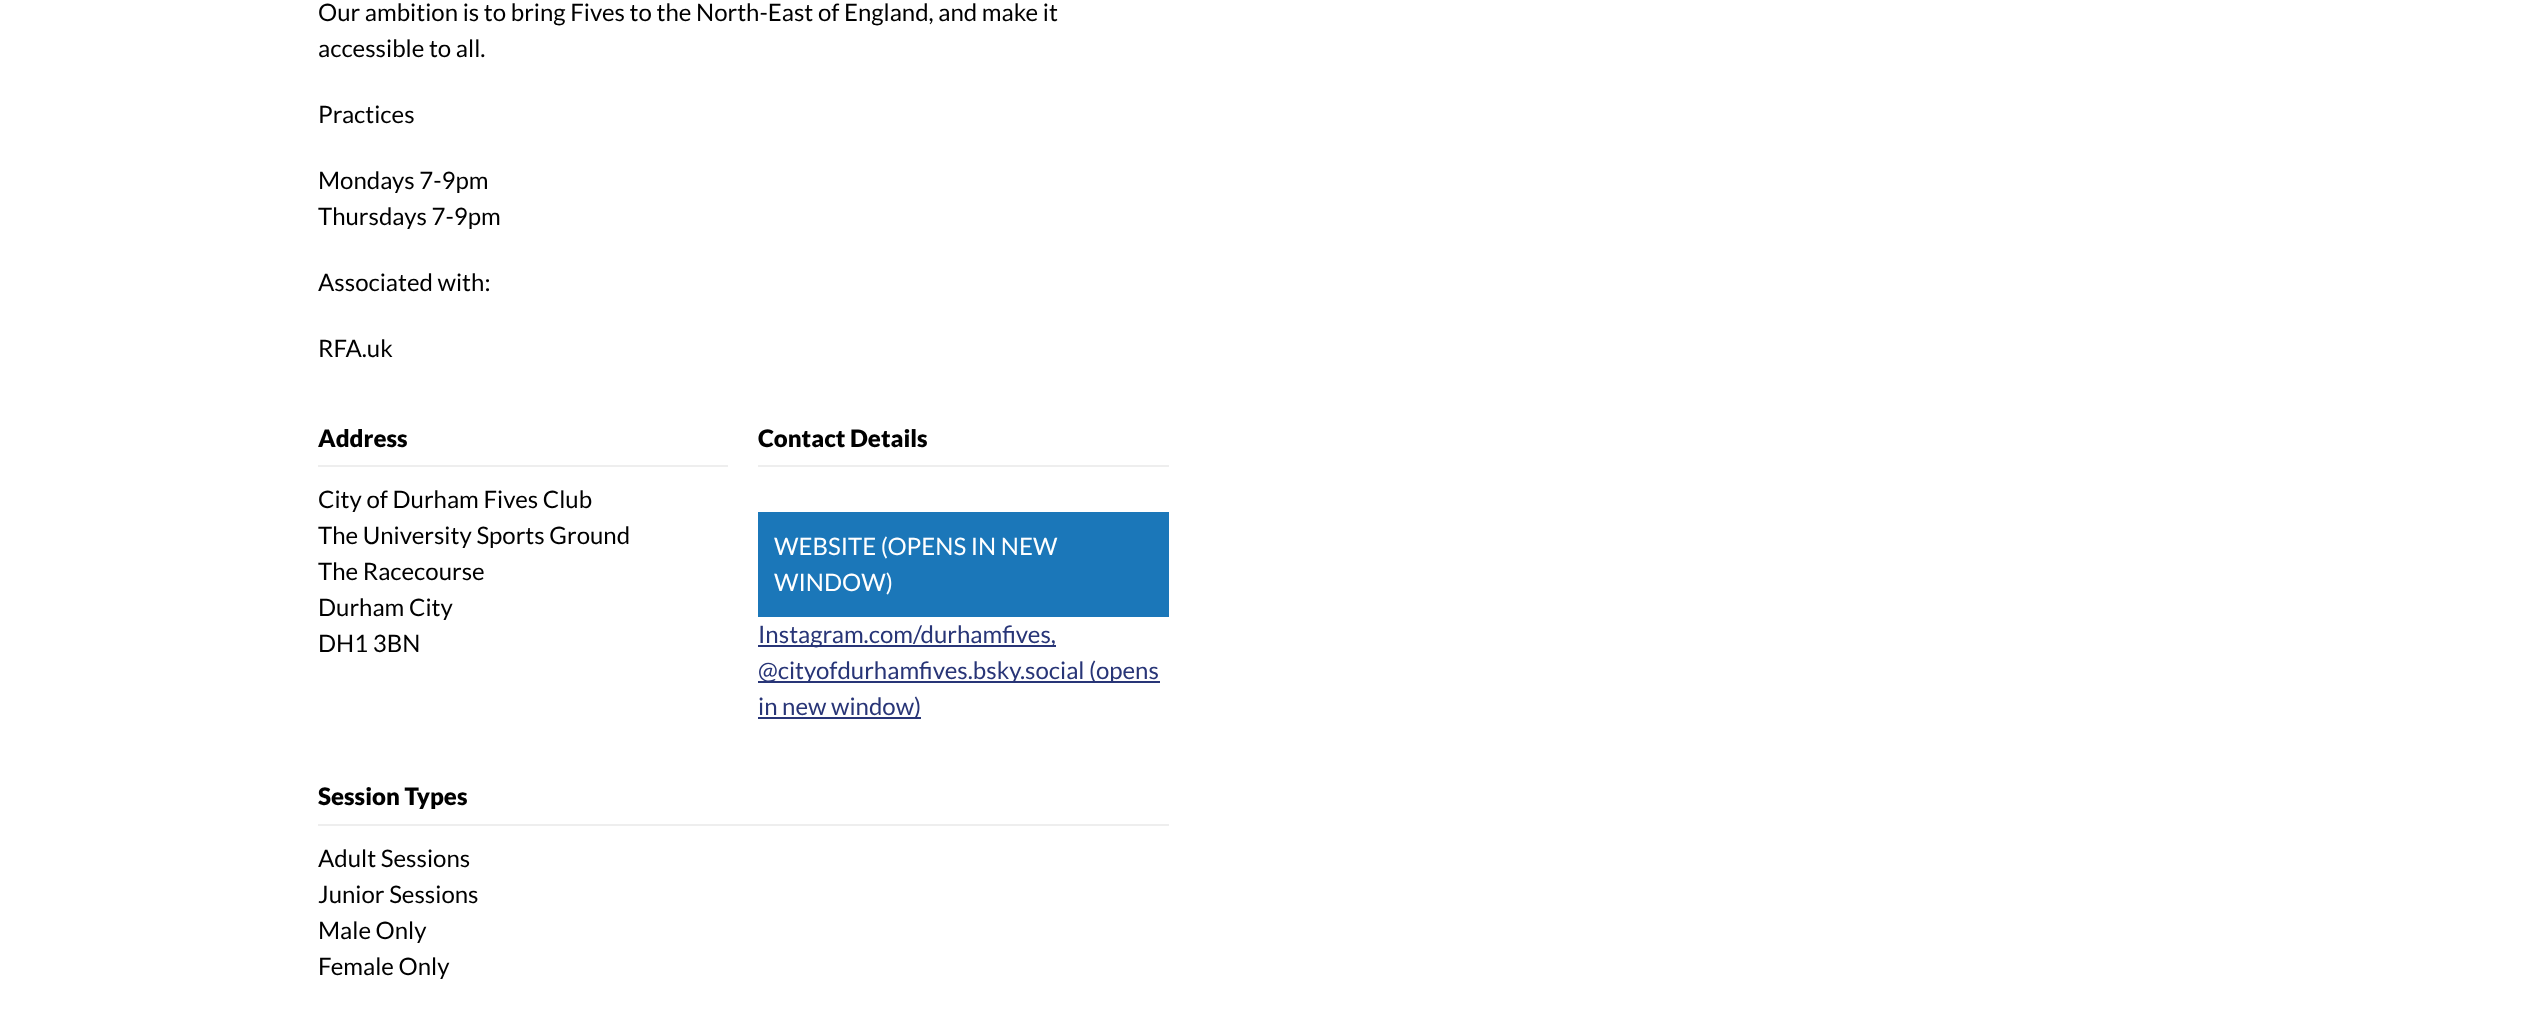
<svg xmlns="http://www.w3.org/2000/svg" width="2525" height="1035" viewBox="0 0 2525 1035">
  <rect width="100%" height="100%" fill="#ffffff"/>
  <text x="318" y="21" font-family="Lato" font-size="24" fill="#000000">Our ambition is to bring Fives to the North-East of England, and make it</text>
  <text x="318" y="57" font-family="Lato" font-size="24" fill="#000000">accessible to all.</text>
  <text x="318" y="123" font-family="Lato" font-size="24" fill="#000000">Practices</text>
  <text x="318" y="189" font-family="Lato" font-size="24" fill="#000000">Mondays 7-9pm</text>
  <text x="318" y="225" font-family="Lato" font-size="24" fill="#000000">Thursdays 7-9pm</text>
  <text x="318" y="291" font-family="Lato" font-size="24" fill="#000000">Associated with:</text>
  <text x="318" y="357" font-family="Lato" font-size="24" fill="#000000">RFA.uk</text>
  <text x="318" y="447" font-family="Lato" font-size="24" font-weight="900" fill="#000000">Address</text>
  <rect x="318" y="465" width="410" height="2" fill="#eeeeee"/>
  <text x="318" y="508" font-family="Lato" font-size="24" fill="#000000">City of Durham Fives Club</text>
  <text x="318" y="544" font-family="Lato" font-size="24" fill="#000000">The University Sports Ground</text>
  <text x="318" y="580" font-family="Lato" font-size="24" fill="#000000">The Racecourse</text>
  <text x="318" y="616" font-family="Lato" font-size="24" fill="#000000">Durham City</text>
  <text x="318" y="652" font-family="Lato" font-size="24" fill="#000000">DH1 3BN</text>
  <text x="758" y="447" font-family="Lato" font-size="24" font-weight="900" fill="#000000">Contact Details</text>
  <rect x="758" y="465" width="411" height="2" fill="#eeeeee"/>
  <rect x="758" y="512" width="411" height="105" fill="#1b77b9"/>
  <text x="774" y="555" font-family="Lato" font-size="24" fill="#ffffff">WEBSITE (OPENS IN NEW</text>
  <text x="774" y="591" font-family="Lato" font-size="24" fill="#ffffff">WINDOW)</text>
  <rect x="758" y="645" width="298" height="2" fill="#283577"/>
  <text x="758" y="643" font-family="Lato" font-size="24" fill="#283577">Instagram.com/durhamfives,</text>
  <rect x="758" y="681" width="402" height="2" fill="#283577"/>
  <text x="758" y="679" font-family="Lato" font-size="24" fill="#283577">@cityofdurhamfives.bsky.social (opens</text>
  <rect x="758" y="717" width="163" height="2" fill="#283577"/>
  <text x="758" y="715" font-family="Lato" font-size="24" fill="#283577">in new window)</text>
  <text x="318" y="805" font-family="Lato" font-size="24" font-weight="900" fill="#000000">Session Types</text>
  <rect x="318" y="824" width="851" height="2" fill="#eeeeee"/>
  <text x="318" y="867" font-family="Lato" font-size="24" fill="#000000">Adult Sessions</text>
  <text x="318" y="903" font-family="Lato" font-size="24" fill="#000000">Junior Sessions</text>
  <text x="318" y="939" font-family="Lato" font-size="24" fill="#000000">Male Only</text>
  <text x="318" y="975" font-family="Lato" font-size="24" fill="#000000">Female Only</text>
</svg>
